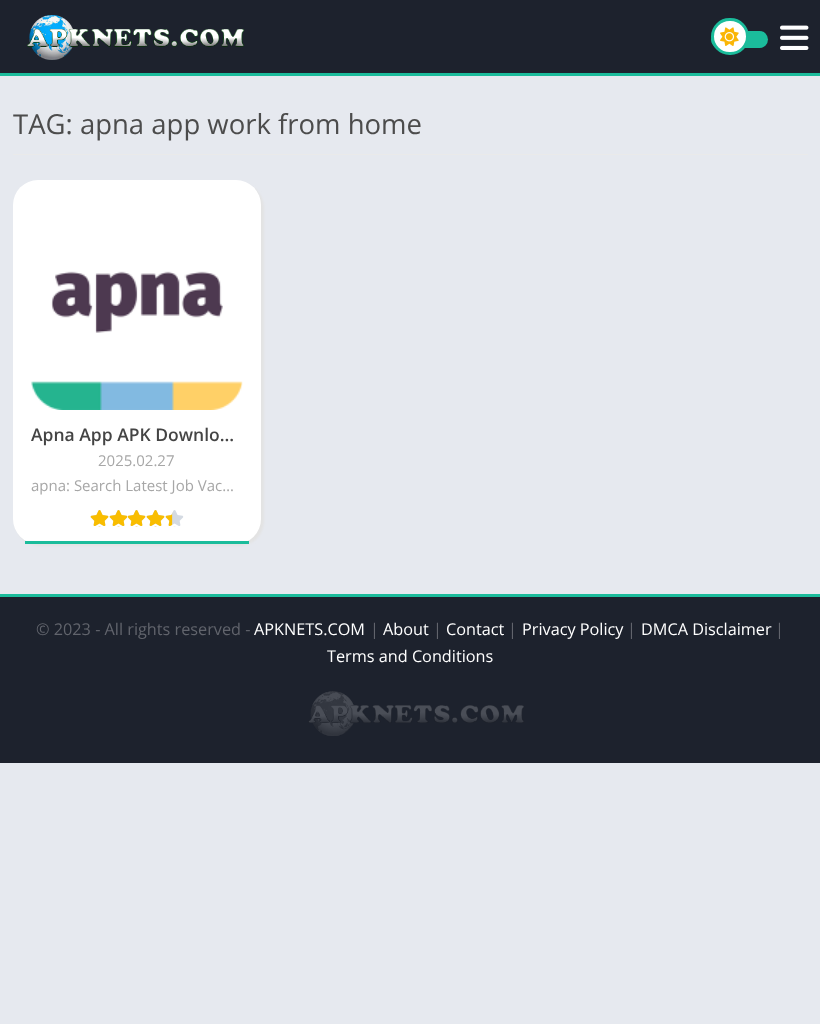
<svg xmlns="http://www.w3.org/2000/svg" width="820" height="1024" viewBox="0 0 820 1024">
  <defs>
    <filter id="blur1" x="-50%" y="-200%" width="200%" height="500%"><feGaussianBlur stdDeviation="1"/></filter>
  </defs>
  <rect width="100%" height="100%" fill="#e6e9ef"/>
  <rect x="0" y="0" width="820" height="73" fill="#1d222d"/>
  <rect x="0" y="73" width="820" height="3" fill="#1bbc9b"/>
  <image x="27" y="15" width="218" height="45" href="img1.png"/>
  <rect x="711" y="31" width="57" height="17" rx="8.5" fill="#1bbc9b"/>
  <rect x="712.5" y="19.5" width="35" height="34" rx="17" fill="#ffffff" stroke="#1bbc9b" stroke-width="3"/>
  <image x="720" y="27" width="19" height="19" href="img2.png"/>
  <image x="780" y="25" width="29" height="25" href="img3.png"/>
  <rect x="13" y="154" width="795" height="1" fill="#eaeaea"/>
  <text x="13" y="134" font-family="Open Sans" font-size="27.5" fill="#4c4c4c">TAG: apna app work from home</text>
  <rect x="15" y="183" width="249" height="363" rx="25" fill="#e3e3e3" filter="url(#blur1)"/>
  <rect x="13" y="180" width="248" height="364" rx="25" fill="#ffffff"/>
  <rect x="25" y="541" width="224" height="3" fill="#1bbc9b"/>
  <image x="31" y="271" width="212" height="139" href="img4.png"/>
  <text x="31" y="441" font-family="Open Sans" font-size="17.5" font-weight="600" fill="#444444">Apna App APK Downlo…</text>
  <text x="98" y="466" font-family="Open Sans" font-size="15" fill="#a7a7a7">2025.02.27</text>
  <text x="31" y="491" font-family="Open Sans" font-size="15" fill="#a7a7a7">apna: Search Latest Job Vac…</text>
  <image x="90" y="510" width="94" height="17" href="img5.png"/>
  <image x="90" y="510" width="83" height="17" href="img6.png"/>
  <rect x="0" y="597" width="820" height="166" fill="#1d222d"/>
  <rect x="0" y="594" width="820" height="3" fill="#1bbc9b"/>
  <text x="36" y="635" font-family="Open Sans" font-size="16.25" fill="#61646c">© 2023 - All rights reserved -</text>
  <text x="254" y="635" font-family="Open Sans" font-size="16.25" fill="#ffffff">APKNETS.COM</text>
  <text x="370" y="635" font-family="Open Sans" font-size="16.25" fill="#61646c">|</text>
  <text x="383" y="635" font-family="Open Sans" font-size="16.25" fill="#ffffff">About</text>
  <text x="433" y="635" font-family="Open Sans" font-size="16.25" fill="#61646c">|</text>
  <text x="446" y="635" font-family="Open Sans" font-size="16.25" fill="#ffffff">Contact</text>
  <text x="508" y="635" font-family="Open Sans" font-size="16.25" fill="#61646c">|</text>
  <text x="522" y="635" font-family="Open Sans" font-size="16.25" fill="#ffffff">Privacy Policy</text>
  <text x="627" y="635" font-family="Open Sans" font-size="16.25" fill="#61646c">|</text>
  <text x="641" y="635" font-family="Open Sans" font-size="16.25" fill="#ffffff">DMCA Disclaimer</text>
  <text x="775" y="635" font-family="Open Sans" font-size="16.25" fill="#61646c">|</text>
  <text x="327" y="662" font-family="Open Sans" font-size="16.25" fill="#ffffff">Terms and Conditions</text>
  <image x="308" y="691" width="216" height="45" href="img7.png"/>
</svg>
